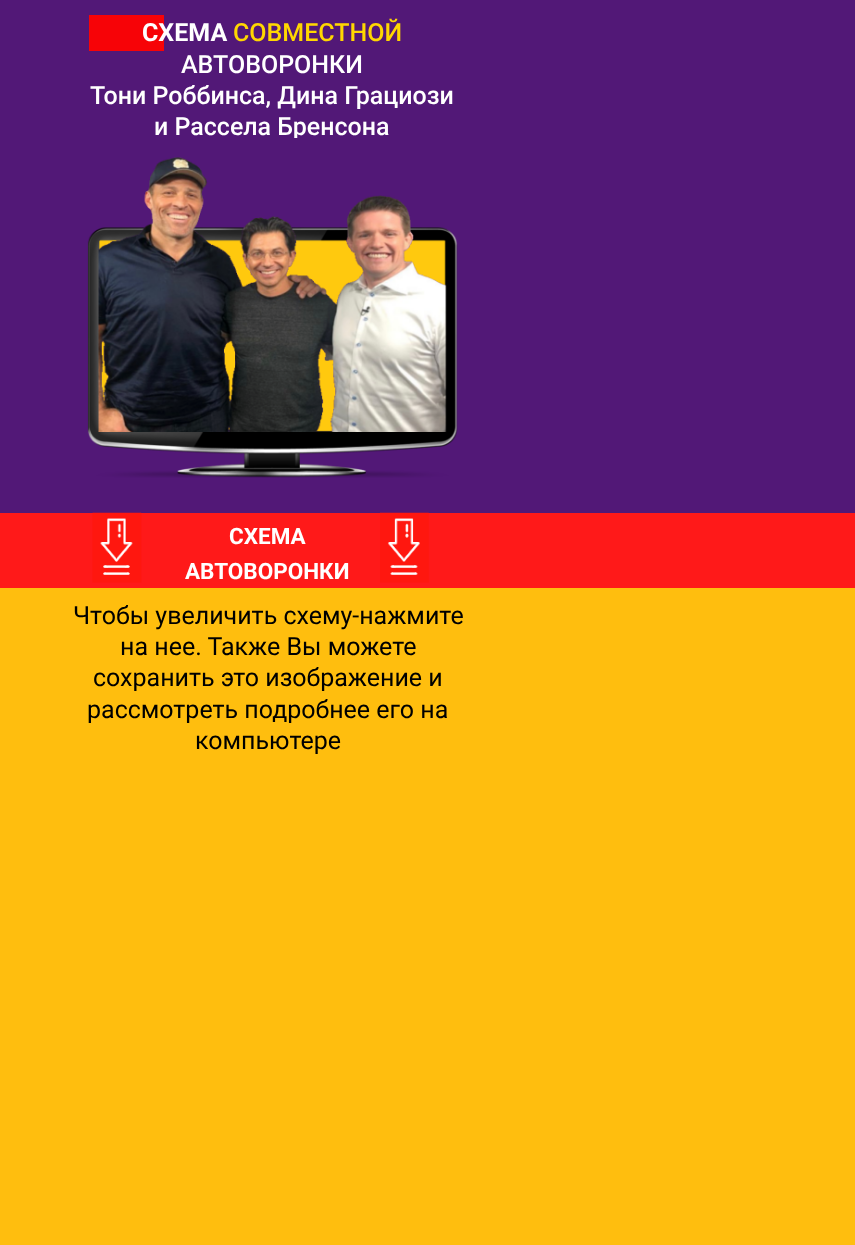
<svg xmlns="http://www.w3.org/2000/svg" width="855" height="1245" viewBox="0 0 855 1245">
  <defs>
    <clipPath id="clip1"><rect x="0" y="0" width="855" height="138"/></clipPath>
  </defs>
  <rect width="100%" height="100%" fill="#521877"/>
  <rect x="89" y="15" width="75" height="36" fill="#f70307"/>
  <text x="142" y="41" font-family="Roboto" font-size="25" font-weight="bold" fill="#ffffff">СХЕМА</text>
  <text x="233" y="41" font-family="Roboto" font-size="25" font-weight="500" fill="#ffd700">СОВМЕСТНОЙ</text>
  <text x="181" y="73" font-family="Roboto" font-size="25" font-weight="500" fill="#ffffff">АВТОВОРОНКИ</text>
  <text x="90" y="104" font-family="Roboto" font-size="25" font-weight="500" fill="#ffffff">Тони Роббинса, Дина Грациози</text>
  <g clip-path="url(#clip1)">
    <text x="154" y="135" font-family="Roboto" font-size="25" font-weight="500" fill="#ffffff">и Рассела Бренсона</text>
  </g>
  <image x="87" y="157" width="371" height="321" href="img1.png"/>
  <rect x="0" y="513" width="855" height="75" fill="#ff1919"/>
  <image x="92" y="512" width="50" height="71" href="img2.png"/>
  <text x="229" y="544" font-family="Roboto" font-size="22.5" font-weight="bold" fill="#ffffff">СХЕМА</text>
  <text x="185" y="579" font-family="Roboto" font-size="22.5" font-weight="bold" fill="#ffffff">АВТОВОРОНКИ</text>
  <image x="380" y="512" width="49" height="71" href="img3.png"/>
  <rect x="0" y="588" width="855" height="657" fill="#ffbe0e"/>
  <text x="73" y="624" font-family="Roboto" font-size="25" fill="#000000">Чтобы увеличить схему-нажмите</text>
  <text x="120" y="655" font-family="Roboto" font-size="25" fill="#000000">на нее. Также Вы можете</text>
  <text x="93" y="686" font-family="Roboto" font-size="25" fill="#000000">сохранить это изображение и</text>
  <text x="87" y="718" font-family="Roboto" font-size="25" fill="#000000">рассмотреть подробнее его на</text>
  <text x="195" y="749" font-family="Roboto" font-size="25" fill="#000000">компьютере</text>
</svg>
